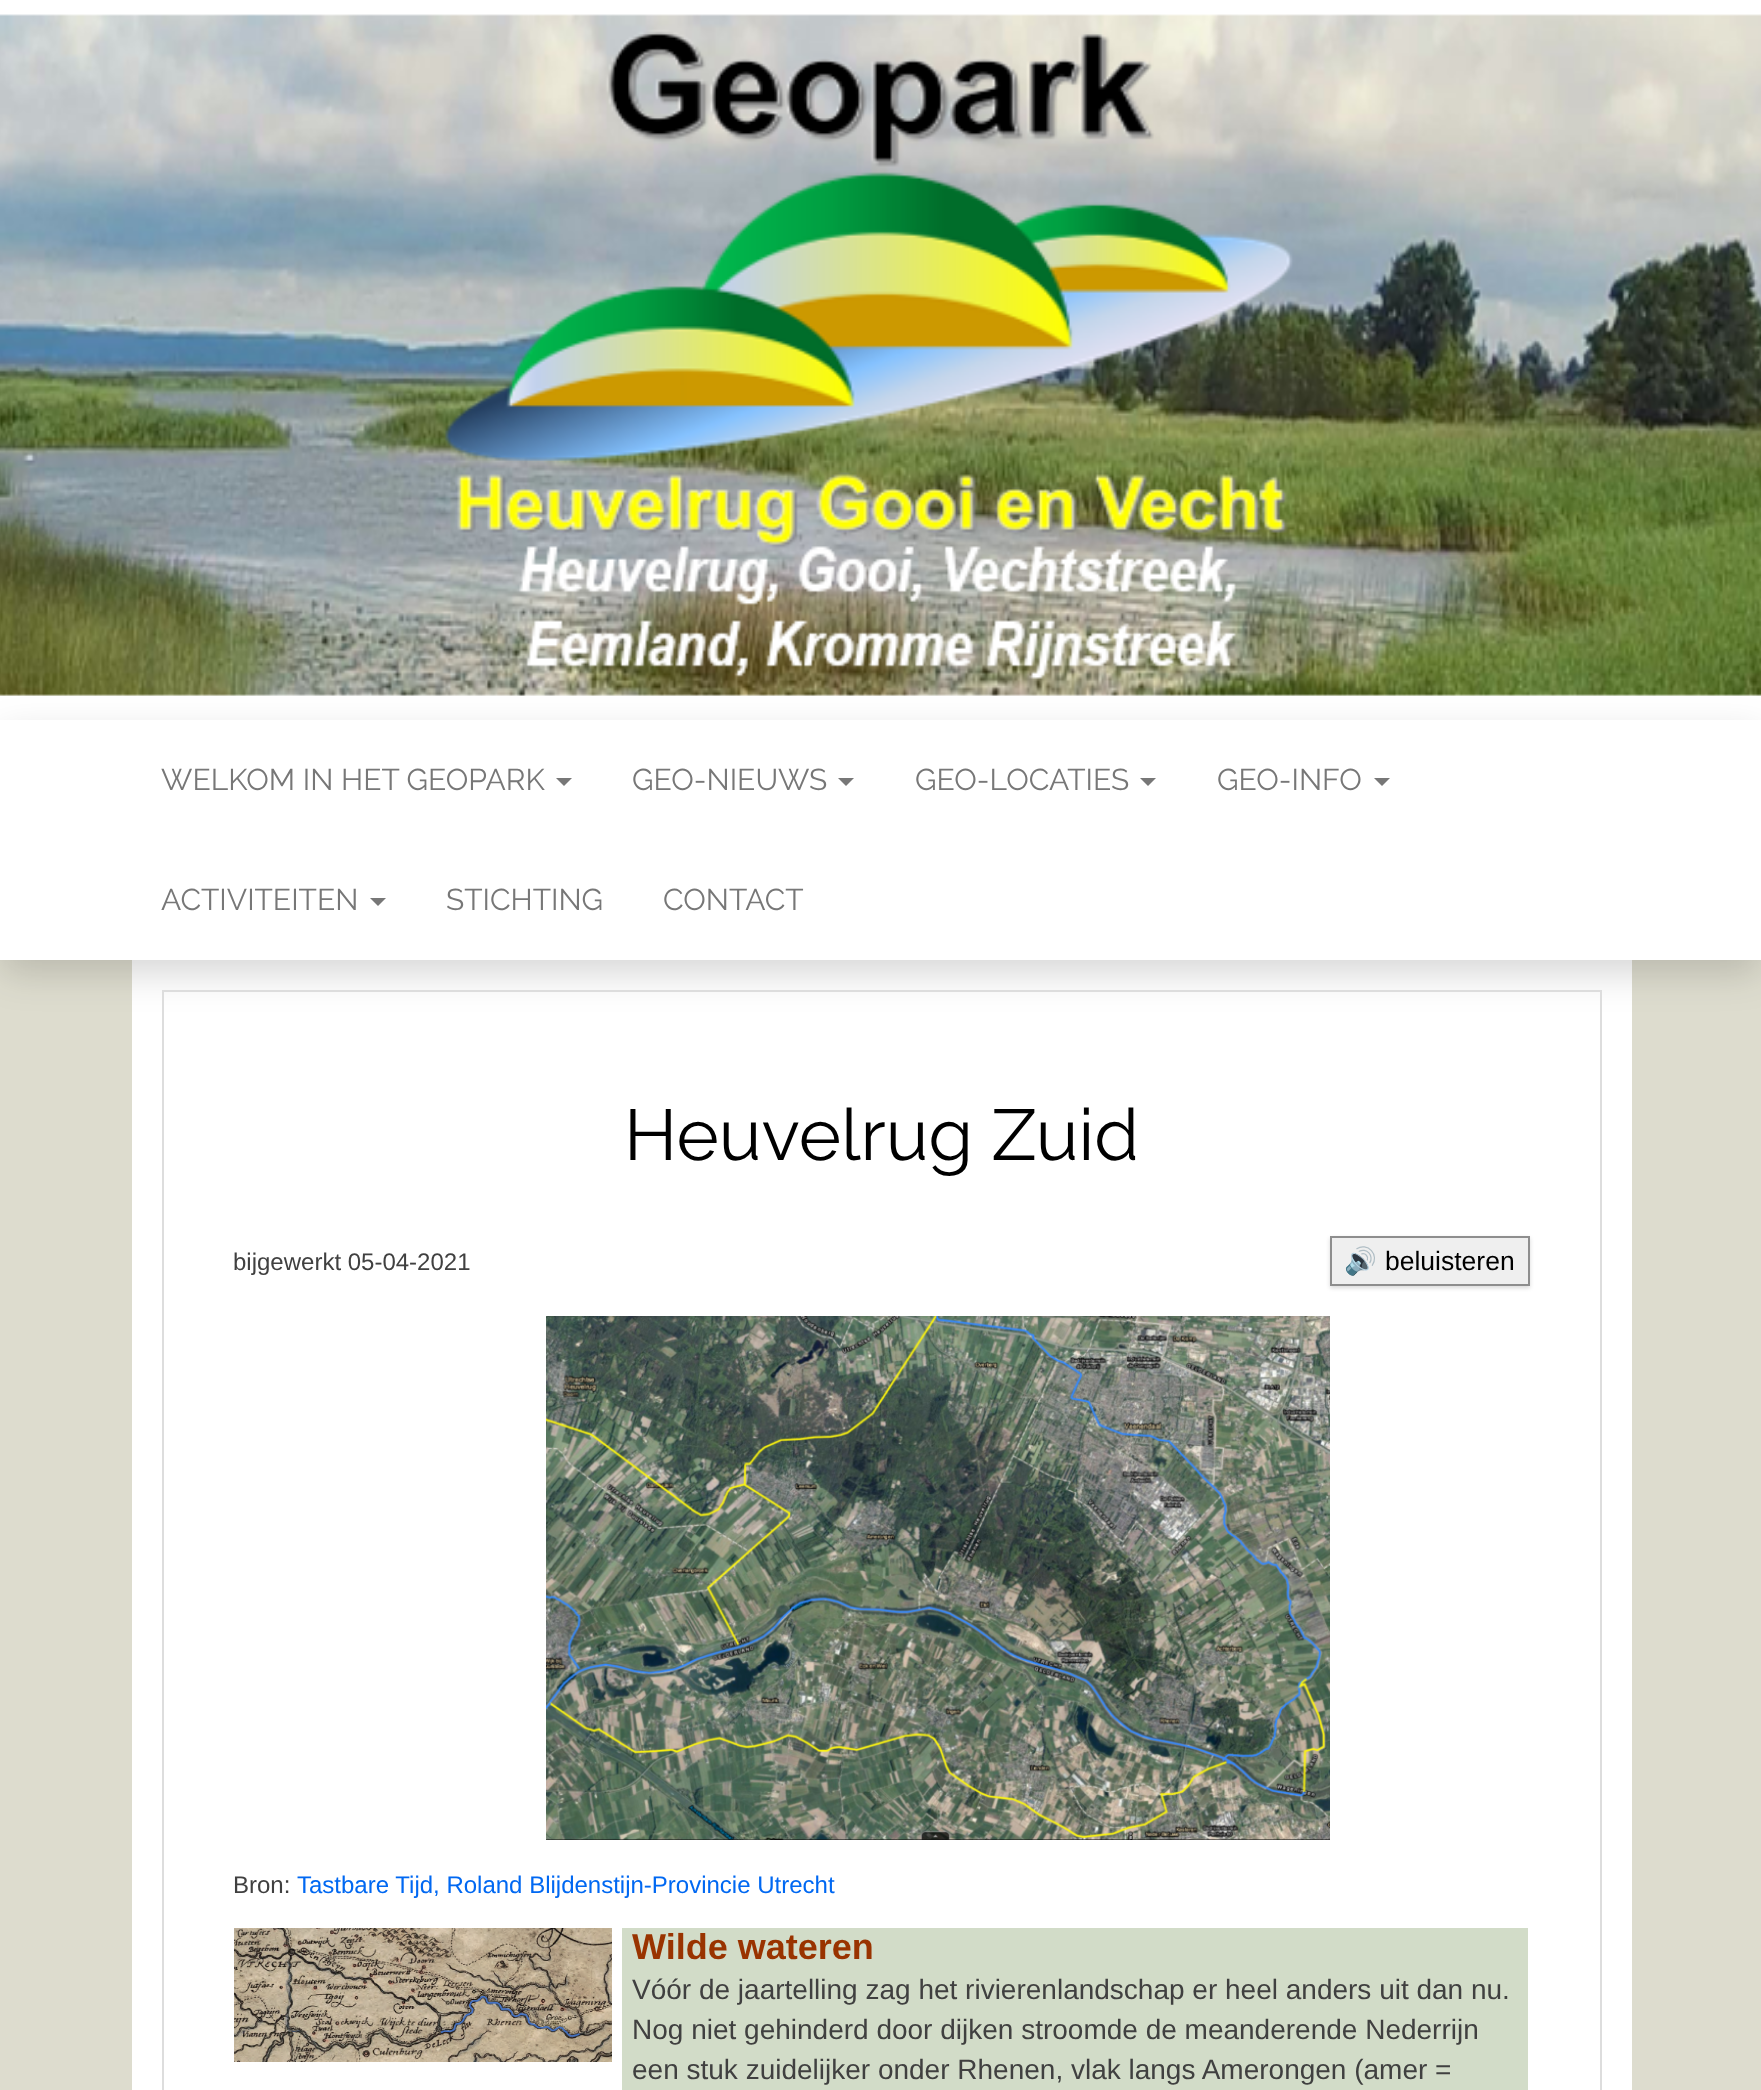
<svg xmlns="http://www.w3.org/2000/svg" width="1761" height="2090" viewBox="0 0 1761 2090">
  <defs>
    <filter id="blur1" x="-50%" y="-200%" width="200%" height="500%"><feGaussianBlur stdDeviation="19"/></filter>
    <filter id="blur2" x="-50%" y="-200%" width="200%" height="500%"><feGaussianBlur stdDeviation="2"/></filter>
  </defs>
  <rect width="100%" height="100%" fill="#dddcce"/>
  <rect x="0" y="0" width="1761" height="720" fill="#ffffff"/>
  <image x="0" y="14" width="1761" height="682" href="img1.png"/>
  <rect x="132" y="960" width="1500" height="1130" fill="#ffffff"/>
  <rect x="2" y="736" width="1758" height="236" fill="#000000" fill-opacity="0.17" filter="url(#blur1)"/>
  <rect x="0" y="720" width="1761" height="240" fill="#ffffff"/>
  <text x="161" y="790" font-family="Raleway" font-size="30" fill="#777777">WELKOM IN HET GEOPARK</text>
  <path d="M556 778H572L564 786Z" fill="#777777"/>
  <text x="632" y="790" font-family="Raleway" font-size="30" fill="#777777">GEO-NIEUWS</text>
  <path d="M838 778H854L846 786Z" fill="#777777"/>
  <text x="915" y="790" font-family="Raleway" font-size="30" fill="#777777">GEO-LOCATIES</text>
  <path d="M1140 778H1156L1148 786Z" fill="#777777"/>
  <text x="1217" y="790" font-family="Raleway" font-size="30" fill="#777777">GEO-INFO</text>
  <path d="M1374 778H1390L1382 786Z" fill="#777777"/>
  <text x="161" y="910" font-family="Raleway" font-size="30" fill="#777777">ACTIVITEITEN</text>
  <path d="M370 898H386L378 906Z" fill="#777777"/>
  <text x="446" y="910" font-family="Raleway" font-size="30" fill="#777777">STICHTING</text>
  <text x="663" y="910" font-family="Raleway" font-size="30" fill="#777777">CONTACT</text>
  <rect x="163" y="991" width="1438" height="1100" fill="none" stroke="#dddddd" stroke-width="2"/>
  <text x="624" y="1160" font-family="Raleway" font-size="72" fill="#000000">Heuvelrug Zuid</text>
  <text x="233" y="1270" font-family="Liberation Sans" font-size="24" fill="#404040">bijgewerkt 05-04-2021</text>
  <rect x="1330" y="1238" width="200" height="50" fill="#000000" fill-opacity="0.15" filter="url(#blur2)"/>
  <rect x="1331" y="1237" width="198" height="48" fill="#efefef" stroke="#8e8e8e" stroke-width="2"/>
  <text x="1344" y="1270" font-family="Noto Color Emoji" font-size="26.5" fill="#000000">🔊</text>
  <text x="1385" y="1270" font-family="Liberation Sans" font-size="26.5" fill="#000000">beluisteren</text>
  <image x="546" y="1316" width="784" height="524" href="img2.png"/>
  <text x="233" y="1893" font-family="Liberation Sans" font-size="24" fill="#404040">Bron:</text>
  <text x="297" y="1893" font-family="Liberation Sans" font-size="24" fill="#0068f2">Tastbare Tijd, Roland Blijdenstijn-Provincie Utrecht</text>
  <image x="234" y="1928" width="378" height="134" href="img3.png"/>
  <rect x="622" y="1928" width="906" height="162" fill="#d2dcc8"/>
  <text x="632" y="1959" font-family="Liberation Sans" font-size="36" font-weight="bold" fill="#993300">Wilde wateren</text>
  <text x="632" y="1999" font-family="Liberation Sans" font-size="28" fill="#404040">Vóór de jaartelling zag het rivierenlandschap er heel anders uit dan nu.</text>
  <text x="632" y="2039" font-family="Liberation Sans" font-size="28" fill="#404040">Nog niet gehinderd door dijken stroomde de meanderende Nederrijn</text>
  <text x="632" y="2079" font-family="Liberation Sans" font-size="28" fill="#404040">een stuk zuidelijker onder Rhenen, vlak langs Amerongen (amer =</text>
</svg>
